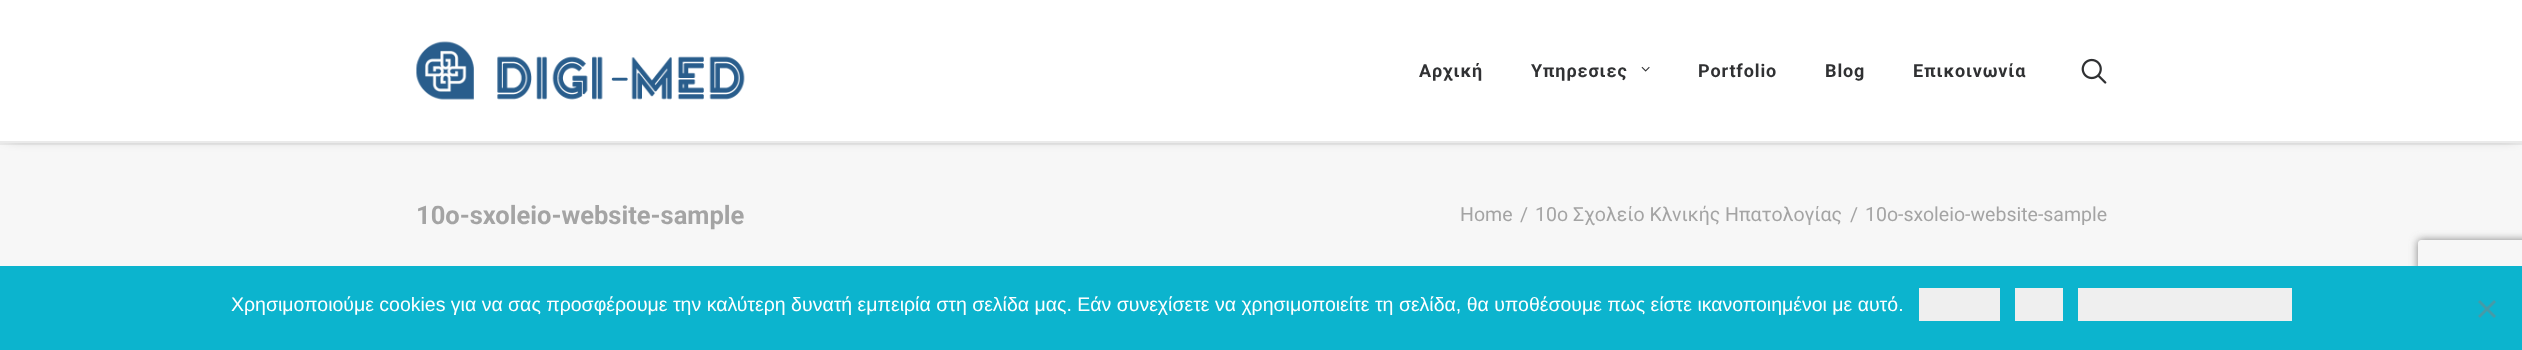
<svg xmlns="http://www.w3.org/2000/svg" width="2522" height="350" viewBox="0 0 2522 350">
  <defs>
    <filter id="blur1" x="-50%" y="-200%" width="200%" height="500%"><feGaussianBlur stdDeviation="7.5"/></filter>
    <clipPath id="clip1"><path d="M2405 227H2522V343H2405ZM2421 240H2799C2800.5 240 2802 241.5 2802 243V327C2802 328.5 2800.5 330 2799 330H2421C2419.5 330 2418 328.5 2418 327V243C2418 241.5 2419.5 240 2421 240Z" clip-rule="evenodd"/></clipPath>
    <filter id="blur2" x="-50%" y="-200%" width="200%" height="500%"><feGaussianBlur stdDeviation="4"/></filter>
  </defs>
  <rect width="100%" height="100%" fill="#f7f7f7"/>
  <rect x="0" y="143" width="2522" height="2" fill="#eaeaea"/>
  <rect x="8" y="21" width="2508" height="113" fill="#000000" fill-opacity="0.6" filter="url(#blur1)"/>
  <rect x="0" y="0" width="2522" height="141" fill="#ffffff"/>
  <rect x="0" y="141" width="2522" height="2" fill="#eaeaea"/>
  <image x="416" y="41" width="329" height="59" href="img1.png"/>
  <text x="1419" y="77" font-family="Roboto" font-size="18" font-weight="bold" letter-spacing="0.9" fill="#303133">Αρχική</text>
  <text x="1531" y="77" font-family="Roboto" font-size="18" font-weight="bold" letter-spacing="0.9" fill="#303133">Υπηρεσιες</text>
  <image x="1641" y="66" width="9" height="6" href="img2.png"/>
  <text x="1698" y="77" font-family="Roboto" font-size="18" font-weight="bold" letter-spacing="0.9" fill="#303133">Portfolio</text>
  <text x="1825" y="77" font-family="Roboto" font-size="18" font-weight="bold" letter-spacing="0.9" fill="#303133">Blog</text>
  <text x="1913" y="77" font-family="Roboto" font-size="18" font-weight="bold" letter-spacing="0.9" fill="#303133">Επικοινωνία</text>
  <image x="2081" y="58" width="26" height="26" href="img3.png"/>
  <text x="416" y="224" font-family="Roboto" font-size="25.5" font-weight="bold" fill="#a4a4a4">10o-sxoleio-website-sample</text>
  <text x="1460" y="221" font-family="Roboto" font-size="19.5" fill="#a4a4a4">Home</text>
  <text x="1520" y="221" font-family="Roboto" font-size="19.5" fill="#a4a4a4">/</text>
  <text x="1535" y="221" font-family="Roboto" font-size="19.5" fill="#a4a4a4">10ο Σχολείο Κλνικής Ηπατολογίας</text>
  <text x="1850" y="221" font-family="Roboto" font-size="19.5" fill="#a4a4a4">/</text>
  <text x="1865" y="221" font-family="Roboto" font-size="19.5" fill="#a4a4a4">10o-sxoleio-website-sample</text>
  <g clip-path="url(#clip1)">
    <rect x="2418" y="240" width="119" height="90" rx="3" fill="#808080" filter="url(#blur2)"/>
  </g>
  <rect x="0" y="266" width="2522" height="84" fill="#0cb4ce"/>
  <text x="231" y="311" font-family="Liberation Sans" font-size="19.5" fill="#ffffff">Χρησιμοποιούμε cookies για να σας προσφέρουμε την καλύτερη δυνατή εμπειρία στη σελίδα μας. Εάν συνεχίσετε να χρησιμοποιείτε τη σελίδα, θα υποθέσουμε πως είστε ικανοποιημένοι με αυτό.</text>
  <rect x="1919" y="288" width="81" height="33" fill="#efefef"/>
  <rect x="2015" y="288" width="48" height="33" fill="#efefef"/>
  <rect x="2078" y="288" width="214" height="33" fill="#efefef"/>
  <path d="M2494 300L2496 302L2480 318L2478 316Z" fill="#469aa7"/>
  <path d="M2478 302L2480 300L2496 316L2494 318Z" fill="#469aa7"/>
</svg>
